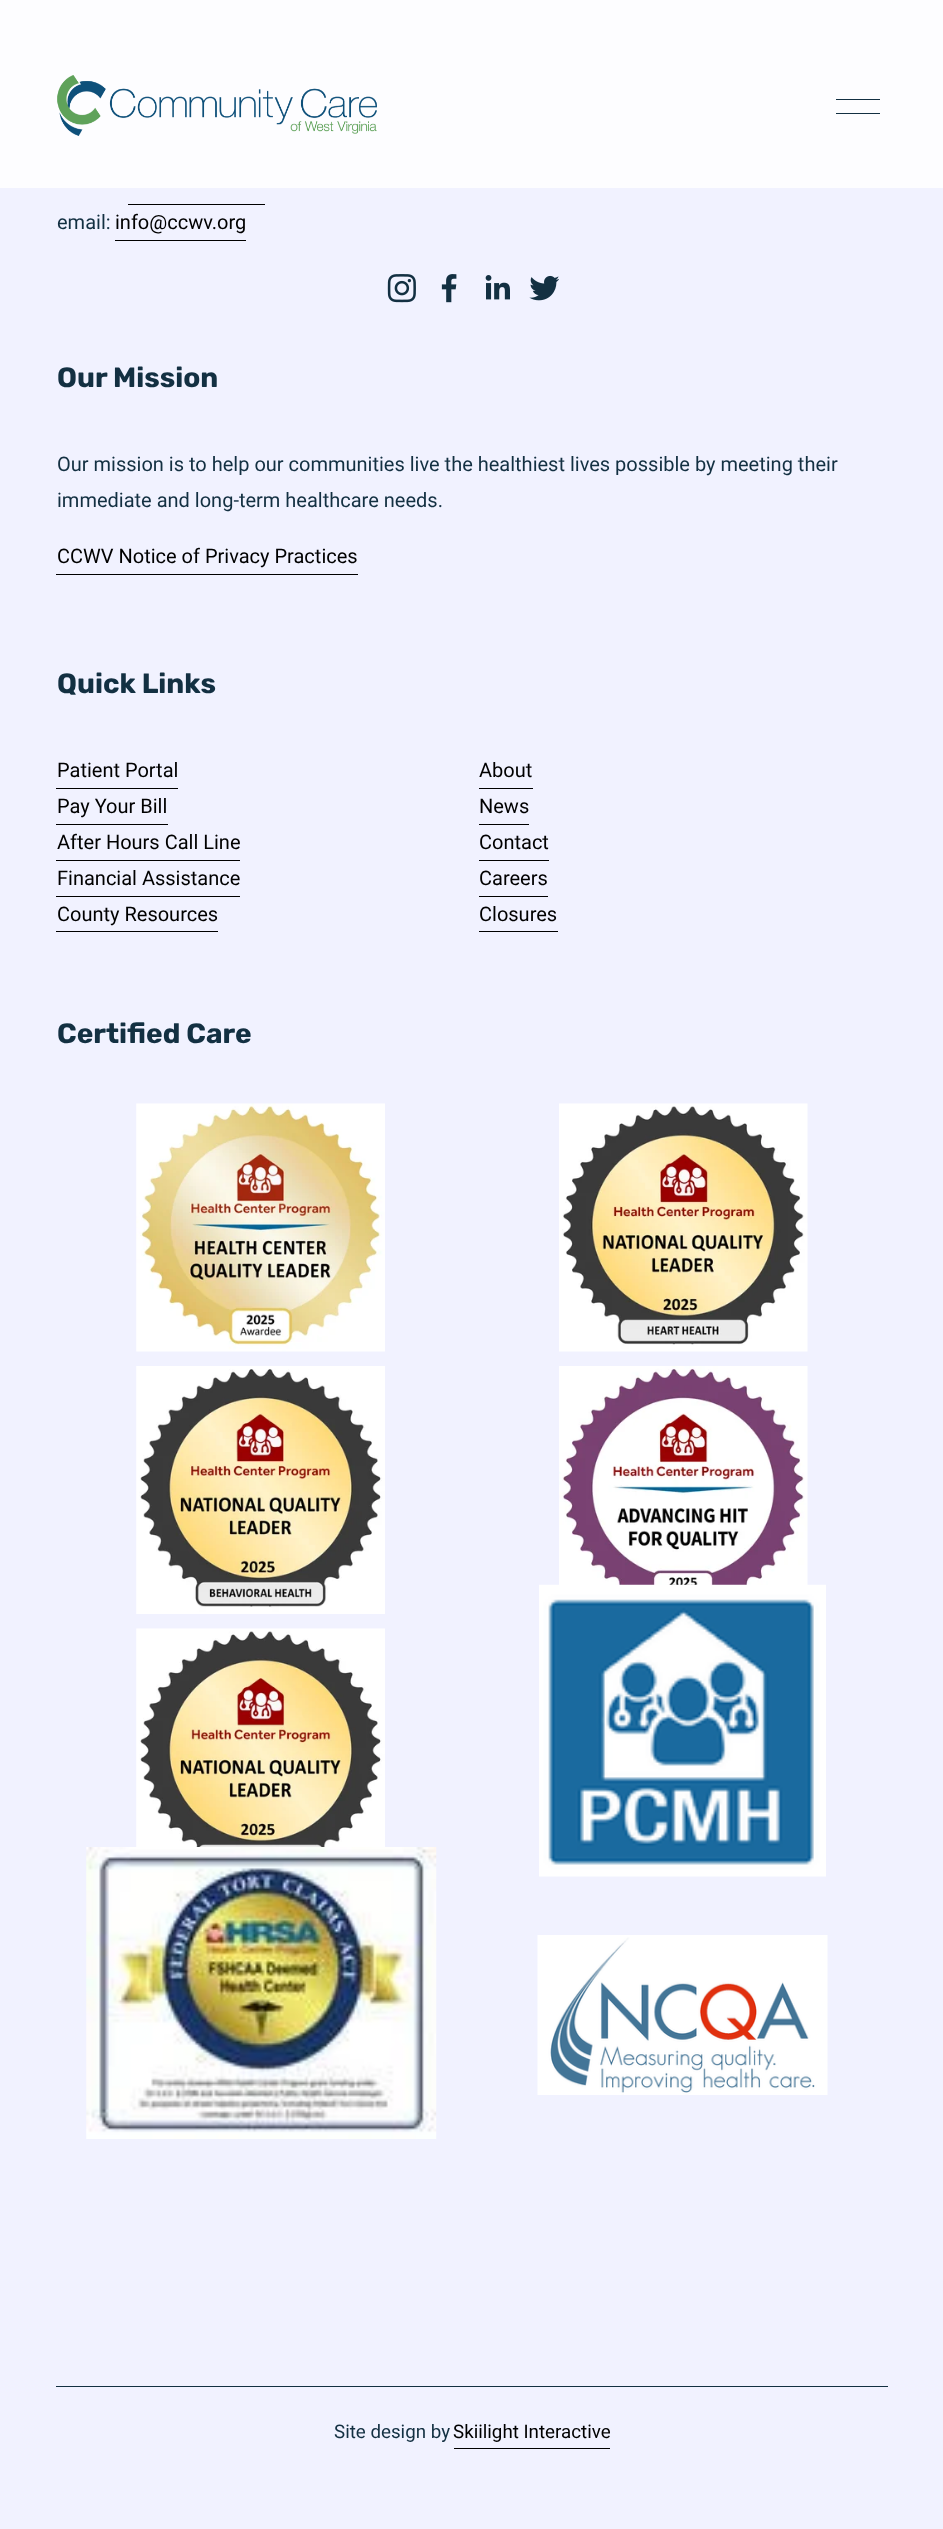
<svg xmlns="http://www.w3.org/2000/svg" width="943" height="2529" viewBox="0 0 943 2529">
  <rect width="100%" height="100%" fill="#f1f2ff"/>
  <rect x="0" y="0" width="943" height="188" fill="#ffffff" fill-opacity="0.85"/>
  <image x="57" y="75" width="320" height="61" href="img1.png"/>
  <rect x="836" y="99" width="44" height="1" fill="#133042"/>
  <rect x="836" y="113" width="44" height="1" fill="#133042"/>
  <rect x="128" y="204" width="137" height="1" fill="#000000"/>
  <text x="57" y="229" font-family="Roboto" font-size="20" fill="#133042">email:</text>
  <rect x="115" y="240" width="131" height="1" fill="#000000"/>
  <text x="115" y="229" font-family="Roboto" font-size="20" fill="#000000">info@ccwv.org</text>
  <image x="387" y="274" width="29" height="29" href="img2.png"/>
  <image x="441" y="274" width="16" height="29" href="img3.png"/>
  <image x="485" y="275" width="25" height="25" href="img4.png"/>
  <image x="529" y="275" width="30" height="26" href="img5.png"/>
  <text x="57" y="387" font-family="Rubik" font-size="28" font-weight="bold" fill="#133042">Our Mission</text>
  <text x="57" y="471" font-family="Roboto" font-size="20" fill="#133042">Our mission is to help our communities live the healthiest lives possible by meeting their</text>
  <text x="57" y="507" font-family="Roboto" font-size="20" fill="#133042">immediate and long-term healthcare needs.</text>
  <rect x="56" y="574" width="302" height="1" fill="#000000"/>
  <text x="57" y="563" font-family="Roboto" font-size="20" fill="#000000">CCWV Notice of Privacy Practices</text>
  <text x="57" y="693" font-family="Rubik" font-size="28" font-weight="bold" fill="#133042">Quick Links</text>
  <rect x="56" y="788" width="122" height="1" fill="#000000"/>
  <text x="57" y="777" font-family="Roboto" font-size="20" fill="#000000">Patient Portal</text>
  <rect x="56" y="824" width="112" height="1" fill="#000000"/>
  <text x="57" y="813" font-family="Roboto" font-size="20" fill="#000000">Pay Your Bill</text>
  <rect x="56" y="860" width="184" height="1" fill="#000000"/>
  <text x="57" y="849" font-family="Roboto" font-size="20" fill="#000000">After Hours Call Line</text>
  <rect x="56" y="896" width="184" height="1" fill="#000000"/>
  <text x="57" y="885" font-family="Roboto" font-size="20" fill="#000000">Financial Assistance</text>
  <rect x="56" y="931" width="162" height="1" fill="#000000"/>
  <text x="57" y="921" font-family="Roboto" font-size="20" fill="#000000">County Resources</text>
  <rect x="479" y="788" width="54" height="1" fill="#000000"/>
  <text x="479" y="777" font-family="Roboto" font-size="20" fill="#000000">About</text>
  <rect x="479" y="824" width="50" height="1" fill="#000000"/>
  <text x="479" y="813" font-family="Roboto" font-size="20" fill="#000000">News</text>
  <rect x="479" y="860" width="70" height="1" fill="#000000"/>
  <text x="479" y="849" font-family="Roboto" font-size="20" fill="#000000">Contact</text>
  <rect x="479" y="896" width="69" height="1" fill="#000000"/>
  <text x="479" y="885" font-family="Roboto" font-size="20" fill="#000000">Careers</text>
  <rect x="479" y="931" width="79" height="1" fill="#000000"/>
  <text x="479" y="921" font-family="Roboto" font-size="20" fill="#000000">Closures</text>
  <text x="57" y="1043" font-family="Rubik" font-size="28" font-weight="bold" fill="#133042">Certified Care</text>
  <image x="136" y="1103" width="249" height="249" href="img6.png"/>
  <image x="559" y="1103" width="249" height="249" href="img7.png"/>
  <image x="136" y="1366" width="249" height="248" href="img8.png"/>
  <image x="559" y="1366" width="249" height="219" href="img9.png"/>
  <image x="136" y="1628" width="249" height="219" href="img10.png"/>
  <image x="539" y="1584" width="287" height="293" href="img11.png"/>
  <image x="86" y="1847" width="351" height="292" href="img12.png"/>
  <image x="537" y="1935" width="291" height="160" href="img13.png"/>
  <rect x="56" y="2386" width="832" height="1" fill="#133042"/>
  <text x="334" y="2438" font-family="Roboto" font-size="18.75" fill="#133042">Site design by</text>
  <rect x="454" y="2448" width="156" height="1" fill="#000000"/>
  <text x="453" y="2438" font-family="Roboto" font-size="18.75" fill="#000000">Skiilight Interactive</text>
</svg>
